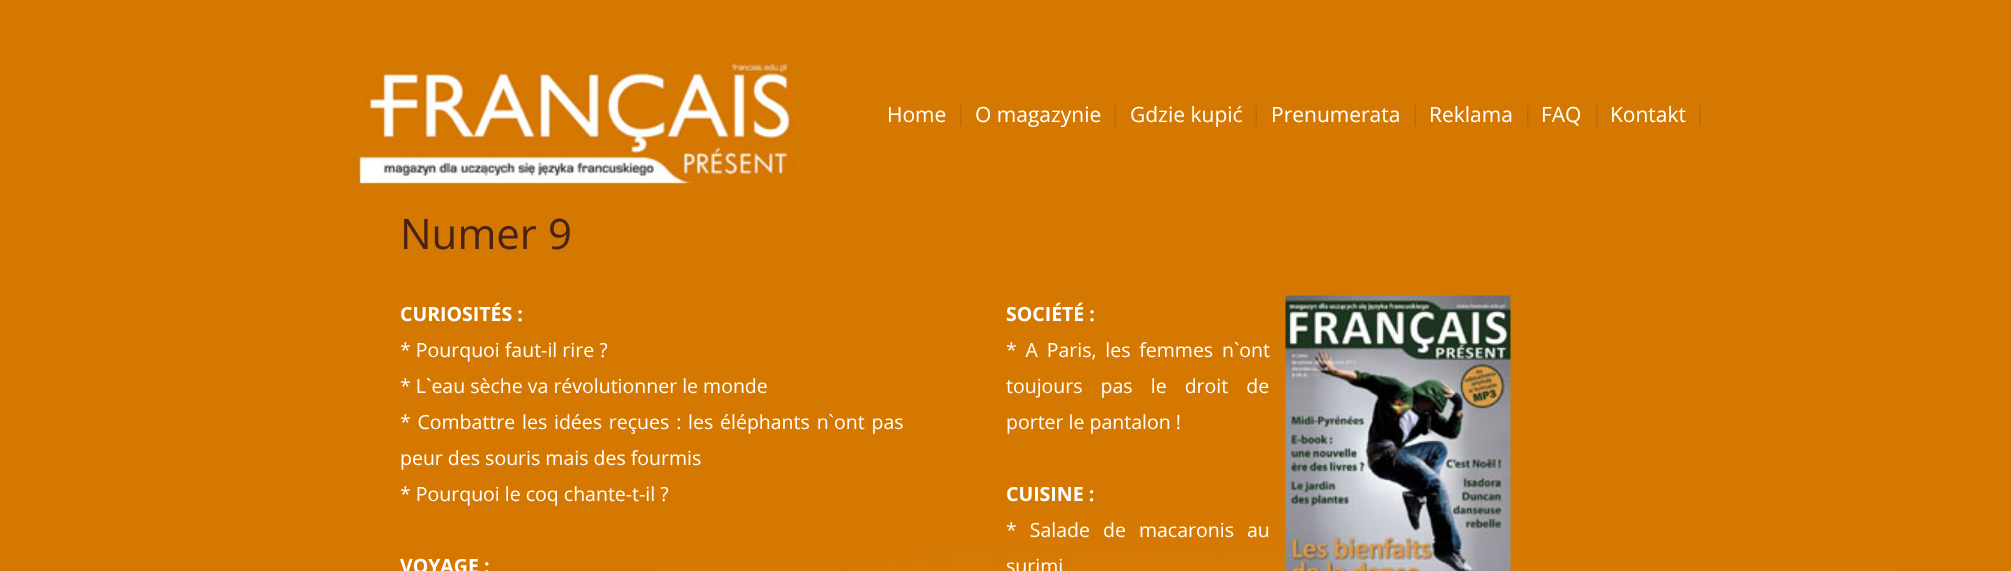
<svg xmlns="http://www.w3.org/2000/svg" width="2011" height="571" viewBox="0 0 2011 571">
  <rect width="100%" height="100%" fill="#ffffff"/>
  <image x="0" y="0" width="2011" height="571" href="img1.png"/>
  <image x="355" y="60" width="445" height="132" href="img2.png"/>
  <image x="960" y="105" width="2" height="22" href="img3.png"/>
  <text x="887" y="122" font-family="Open Sans" font-size="21" fill="#ffffff">Home</text>
  <image x="1114" y="105" width="2" height="22" href="img4.png"/>
  <text x="975" y="122" font-family="Open Sans" font-size="21" fill="#ffffff">O magazynie</text>
  <image x="1255" y="105" width="2" height="22" href="img4.png"/>
  <text x="1130" y="122" font-family="Open Sans" font-size="21" fill="#ffffff">Gdzie kupić</text>
  <image x="1414" y="105" width="2" height="22" href="img4.png"/>
  <text x="1271" y="122" font-family="Open Sans" font-size="21" fill="#ffffff">Prenumerata</text>
  <image x="1527" y="105" width="2" height="22" href="img3.png"/>
  <text x="1429" y="122" font-family="Open Sans" font-size="21" fill="#ffffff">Reklama</text>
  <image x="1596" y="105" width="2" height="22" href="img3.png"/>
  <text x="1541" y="122" font-family="Open Sans" font-size="21" fill="#ffffff">FAQ</text>
  <image x="1699" y="105" width="2" height="22" href="img4.png"/>
  <text x="1610" y="122" font-family="Open Sans" font-size="21" fill="#ffffff">Kontakt</text>
  <text x="400" y="249" font-family="Open Sans" font-size="42" fill="#472215">Numer 9</text>
  <text x="400" y="321" font-family="Open Sans" font-size="19.5" font-weight="bold" fill="#ffffff">CURIOSITÉS :</text>
  <text x="400" y="357" font-family="Open Sans" font-size="19.5" fill="#ffffff">* Pourquoi faut-il rire ?</text>
  <text x="400" y="393" font-family="Open Sans" font-size="19.5" fill="#ffffff">* L`eau sèche va révolutionner le monde</text>
  <text x="400" y="429" word-spacing="1.75" font-family="Open Sans" font-size="19.5" fill="#ffffff">* Combattre les idées reçues : les éléphants n`ont pas</text>
  <text x="400" y="465" font-family="Open Sans" font-size="19.5" fill="#ffffff">peur des souris mais des fourmis</text>
  <text x="400" y="501" font-family="Open Sans" font-size="19.5" fill="#ffffff">* Pourquoi le coq chante-t-il ?</text>
  <text x="400" y="573" font-family="Open Sans" font-size="19.5" font-weight="bold" fill="#ffffff">VOYAGE :</text>
  <text x="1006" y="321" font-family="Open Sans" font-size="19.5" font-weight="bold" fill="#ffffff">SOCIÉTÉ :</text>
  <image x="1285" y="295" width="226" height="276" href="img5.png"/>
  <text x="1006" y="357" word-spacing="3.75" font-family="Open Sans" font-size="19.5" fill="#ffffff">* A Paris, les femmes n`ont</text>
  <text x="1006" y="393" word-spacing="13" font-family="Open Sans" font-size="19.5" fill="#ffffff">toujours pas le droit de</text>
  <text x="1006" y="429" font-family="Open Sans" font-size="19.5" fill="#ffffff">porter le pantalon !</text>
  <text x="1006" y="501" font-family="Open Sans" font-size="19.5" font-weight="bold" fill="#ffffff">CUISINE :</text>
  <text x="1006" y="537" word-spacing="8" font-family="Open Sans" font-size="19.5" fill="#ffffff">* Salade de macaronis au</text>
  <text x="1006" y="573" font-family="Open Sans" font-size="19.5" fill="#ffffff">surimi</text>
</svg>
